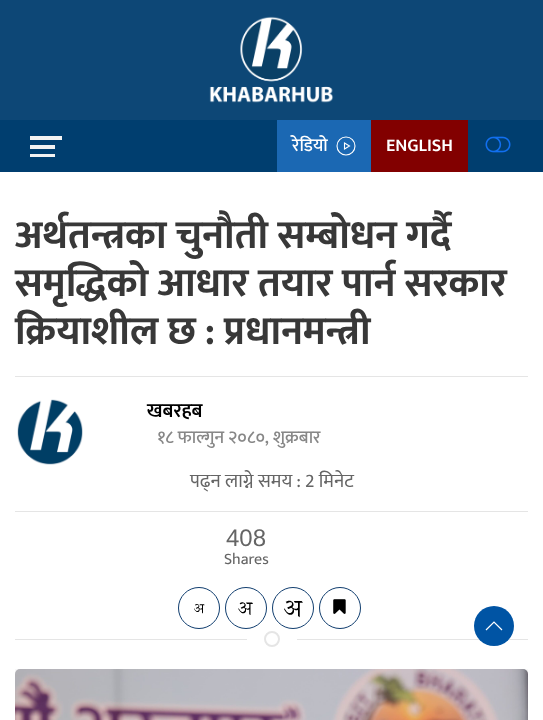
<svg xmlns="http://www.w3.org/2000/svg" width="543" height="720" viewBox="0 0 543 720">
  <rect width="100%" height="100%" fill="#ffffff"/>
  <rect x="0" y="0" width="543" height="120" fill="#0d4776"/>
  <image x="209" y="16" width="125" height="87" href="img1.png"/>
  <rect x="0" y="120" width="543" height="52" fill="#003e6f"/>
  <image x="30" y="136" width="32" height="21" href="img2.png"/>
  <rect x="277" y="120" width="94" height="52" fill="#1b68b3"/>
  <text x="292" y="151" font-family="Mukta" font-size="18" font-weight="500" fill="#ffffff">रेडियो</text>
  <path d="M344.5 143L349.5 146L344.5 149Z" fill="none" stroke="#ffffff" stroke-width="1.1"/>
  <circle cx="346" cy="146" r="9" fill="none" stroke="#ffffff" stroke-width="1.1"/>
  <rect x="371" y="120" width="97" height="52" fill="#820000"/>
  <text x="386" y="151" font-family="Mukta" font-size="18" font-weight="600" fill="#ffffff">ENGLISH</text>
  <image x="485" y="136" width="26" height="17" href="img3.png"/>
  <text x="15" y="248" font-family="Mukta" font-size="40" font-weight="bold" fill="#383838">अर्थतन्त्रका चुनौती सम्बोधन गर्दै</text>
  <text x="15" y="296" font-family="Mukta" font-size="40" font-weight="bold" fill="#383838">समृद्धिको आधार तयार पार्न सरकार</text>
  <text x="15" y="344" font-family="Mukta" font-size="40" font-weight="bold" fill="#383838">क्रियाशील छ : प्रधानमन्त्री</text>
  <rect x="15" y="376" width="513" height="1" fill="#e5e5e5"/>
  <image x="17" y="399" width="66" height="66" href="img4.png"/>
  <text x="147" y="417" font-family="Mukta" font-size="20" font-weight="600" fill="#000000">खबरहब</text>
  <text x="157" y="443" font-family="Mukta" font-size="18" font-weight="500" fill="#878787">१८ फाल्गुन २०८०, शुक्रबार</text>
  <text x="190" y="487" font-family="Mukta" font-size="19.25" fill="#656565">पढ्न लाग्ने समय : 2 मिनेट</text>
  <rect x="15" y="511" width="513" height="1" fill="#e5e5e5"/>
  <text x="226" y="546" font-family="Liberation Sans" font-size="24" fill="#656565">408</text>
  <text x="224" y="564" font-family="Mukta" font-size="16" fill="#656565">Shares</text>
  <circle cx="199" cy="608" r="20.5" fill="none" stroke="#113e6f"/>
  <image x="194" y="604" width="11" height="10" href="img5.png"/>
  <circle cx="246" cy="608" r="20.5" fill="none" stroke="#113e6f"/>
  <image x="238" y="602" width="15" height="13" href="img6.png"/>
  <circle cx="293" cy="608" r="20.5" fill="none" stroke="#113e6f"/>
  <image x="284" y="600" width="19" height="18" href="img7.png"/>
  <circle cx="340" cy="608" r="20.5" fill="none" stroke="#113e6f"/>
  <image x="333" y="599" width="13" height="15" href="img8.png"/>
  <circle cx="272" cy="639" r="7" fill="none" stroke="#e5e5e5" stroke-width="2"/>
  <rect x="15" y="639" width="232" height="1" fill="#e5e5e5"/>
  <rect x="297" y="639" width="231" height="1" fill="#e5e5e5"/>
  <rect x="15" y="669" width="513" height="5" fill="#f8f8f8"/>
  <image x="15" y="669" width="513" height="51" href="img9.png"/>
  <circle cx="494" cy="626" r="20" fill="#0054a4"/>
  <path d="M486 630L494 622L502 630" fill="none" stroke="#ffffff" stroke-width="1.2"/>
</svg>
